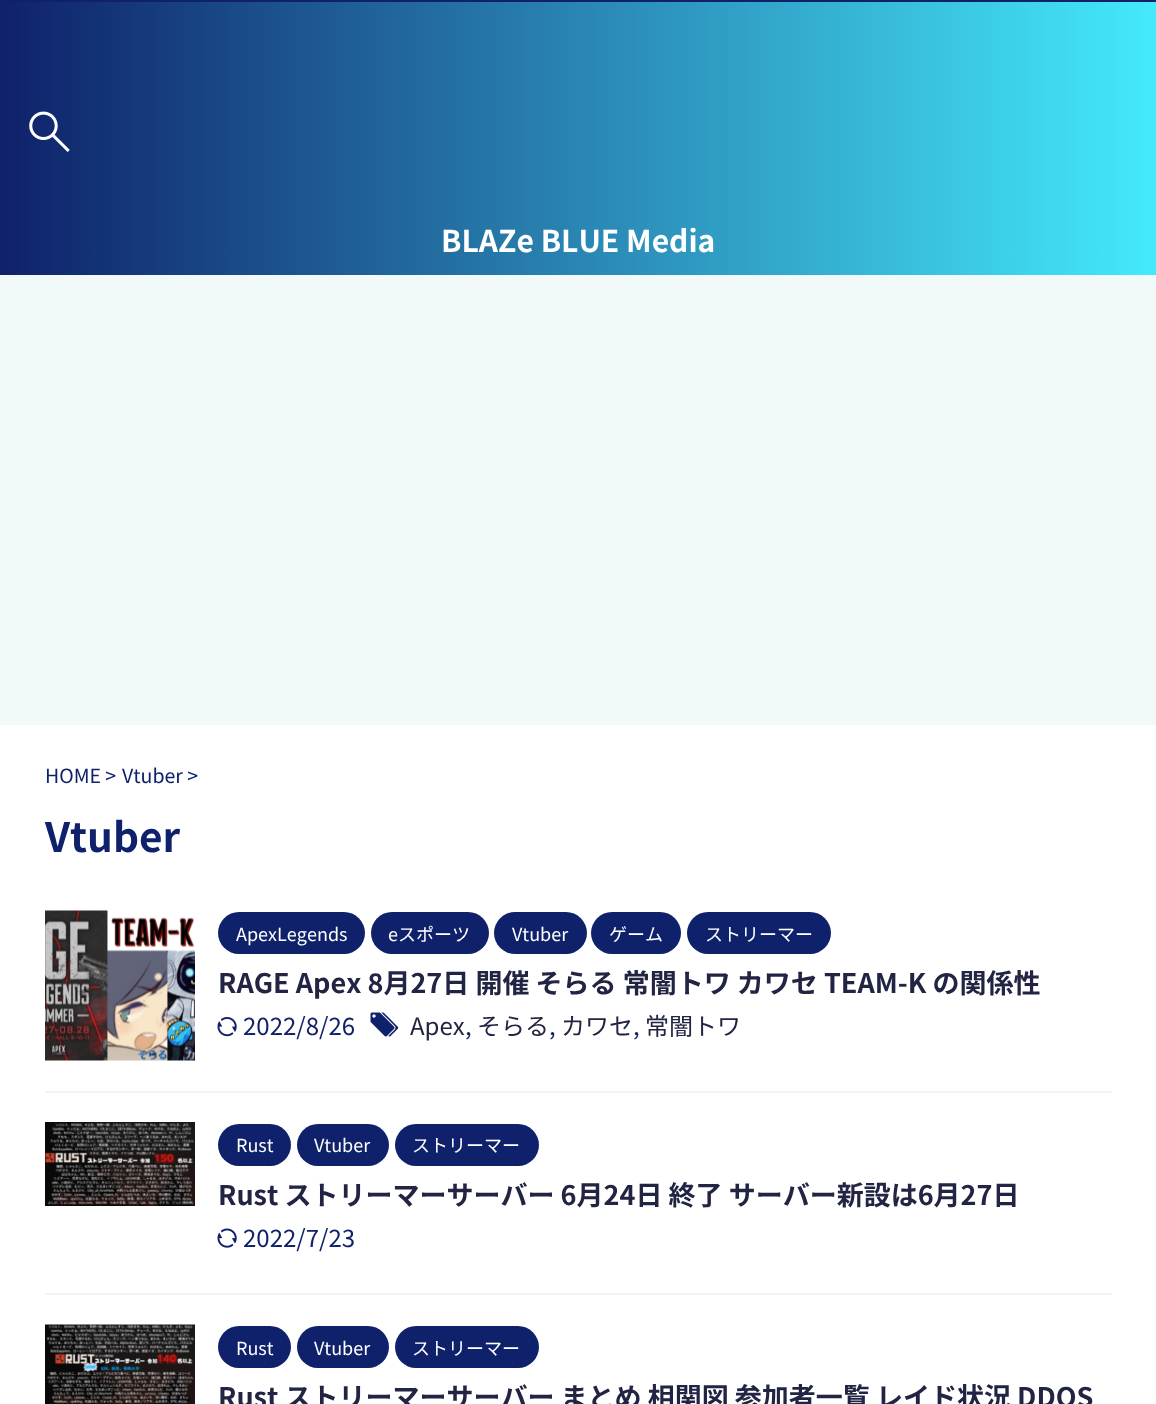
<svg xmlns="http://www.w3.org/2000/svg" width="1156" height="1404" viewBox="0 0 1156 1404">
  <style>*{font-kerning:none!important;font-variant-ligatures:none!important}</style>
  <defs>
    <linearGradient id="g1" gradientUnits="userSpaceOnUse" x1="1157" y1="138" x2="0" y2="138"><stop offset="0" stop-color="#44eafb"/><stop offset="1" stop-color="#0f216a"/></linearGradient>
  </defs>
  <rect width="100%" height="100%" fill="#f2f9f9"/>
  <rect x="0" y="0" width="1156" height="2" fill="#0f216a"/>
  <rect x="0" y="2" width="1156" height="273" fill="url(#g1)"/>
  <image x="29" y="111" width="41" height="41" href="img1.png"/>
  <text x="441" y="252" font-family="Noto Sans JP" font-size="30" font-weight="bold" fill="#ffffff">BLAZe BLUE Media</text>
  <rect x="0" y="725" width="1156" height="679" fill="#ffffff"/>
  <text x="45" y="783" font-family="Noto Sans JP" font-size="19.5" fill="#0f216a">HOME &gt;</text>
  <text x="122" y="783" font-family="Noto Sans JP" font-size="19.5" fill="#0f216a">Vtuber &gt;</text>
  <text x="45" y="852" font-family="Noto Sans JP" font-size="40.5" font-weight="bold" fill="#0f216a">Vtuber</text>
  <rect x="45" y="1091" width="1067" height="2" fill="#f3f3f3"/>
  <image x="45" y="910" width="150" height="151" href="img2.png"/>
  <rect x="218" y="912" width="147" height="42" rx="21" fill="#0f216a"/>
  <text x="236" y="941" font-family="Noto Sans JP" font-size="18" fill="#ffffff">ApexLegends</text>
  <rect x="371" y="912" width="118" height="42" rx="21" fill="#0f216a"/>
  <text x="388" y="941" font-family="Noto Sans JP" font-size="18" fill="#ffffff">eスポーツ</text>
  <rect x="494" y="912" width="93" height="42" rx="21" fill="#0f216a"/>
  <text x="512" y="941" font-family="Noto Sans JP" font-size="18" fill="#ffffff">Vtuber</text>
  <rect x="591" y="912" width="90" height="42" rx="21" fill="#0f216a"/>
  <text x="609" y="941" font-family="Noto Sans JP" font-size="18" fill="#ffffff">ゲーム</text>
  <rect x="687" y="912" width="144" height="42" rx="21" fill="#0f216a"/>
  <text x="705" y="941" font-family="Noto Sans JP" font-size="18" fill="#ffffff">ストリーマー</text>
  <text x="218" y="993" font-family="Noto Sans JP" font-size="27" font-weight="bold" fill="#212442">RAGE Apex 8月27日 開催 そらる 常闇トワ カワセ TEAM-K の関係性</text>
  <image x="217" y="1017" width="20" height="20" href="img3.png"/>
  <text x="243" y="1035" font-family="Noto Sans JP" font-size="24" fill="#0f216a">2022/8/26</text>
  <image x="370" y="1012" width="29" height="25" href="img4.png"/>
  <text x="410" y="1035" font-family="Noto Sans JP" font-size="24" fill="#212442">Apex</text>
  <text x="465" y="1035" font-family="Noto Sans JP" font-size="24" fill="#0f216a">,</text>
  <text x="477" y="1035" font-family="Noto Sans JP" font-size="24" fill="#212442">そらる</text>
  <text x="549" y="1035" font-family="Noto Sans JP" font-size="24" fill="#0f216a">,</text>
  <text x="561" y="1035" font-family="Noto Sans JP" font-size="24" fill="#212442">カワセ</text>
  <text x="633" y="1035" font-family="Noto Sans JP" font-size="24" fill="#0f216a">,</text>
  <text x="645" y="1035" font-family="Noto Sans JP" font-size="24" fill="#212442">常闇トワ</text>
  <rect x="45" y="1293" width="1067" height="2" fill="#f3f3f3"/>
  <image x="45" y="1122" width="150" height="84" href="img5.png"/>
  <rect x="218" y="1124" width="73" height="42" rx="21" fill="#0f216a"/>
  <text x="236" y="1152" font-family="Noto Sans JP" font-size="18" fill="#ffffff">Rust</text>
  <rect x="297" y="1124" width="92" height="42" rx="21" fill="#0f216a"/>
  <text x="314" y="1152" font-family="Noto Sans JP" font-size="18" fill="#ffffff">Vtuber</text>
  <rect x="395" y="1124" width="144" height="42" rx="21" fill="#0f216a"/>
  <text x="412" y="1152" font-family="Noto Sans JP" font-size="18" fill="#ffffff">ストリーマー</text>
  <text x="218" y="1205" font-family="Noto Sans JP" font-size="27" font-weight="bold" fill="#212442">Rust ストリーマーサーバー 6月24日 終了 サーバー新設は6月27日</text>
  <image x="217" y="1228" width="20" height="20" href="img6.png"/>
  <text x="243" y="1247" font-family="Noto Sans JP" font-size="24" fill="#0f216a">2022/7/23</text>
  <image x="45" y="1324" width="150" height="80" href="img7.png"/>
  <rect x="218" y="1326" width="73" height="42" rx="21" fill="#0f216a"/>
  <text x="236" y="1355" font-family="Noto Sans JP" font-size="18" fill="#ffffff">Rust</text>
  <rect x="297" y="1326" width="92" height="42" rx="21" fill="#0f216a"/>
  <text x="314" y="1355" font-family="Noto Sans JP" font-size="18" fill="#ffffff">Vtuber</text>
  <rect x="395" y="1326" width="144" height="42" rx="21" fill="#0f216a"/>
  <text x="412" y="1355" font-family="Noto Sans JP" font-size="18" fill="#ffffff">ストリーマー</text>
  <text x="218" y="1407" font-family="Noto Sans JP" font-size="27" font-weight="bold" fill="#212442">Rust ストリーマーサーバー まとめ 相関図 参加者一覧 レイド状況 DDOS</text>
</svg>
